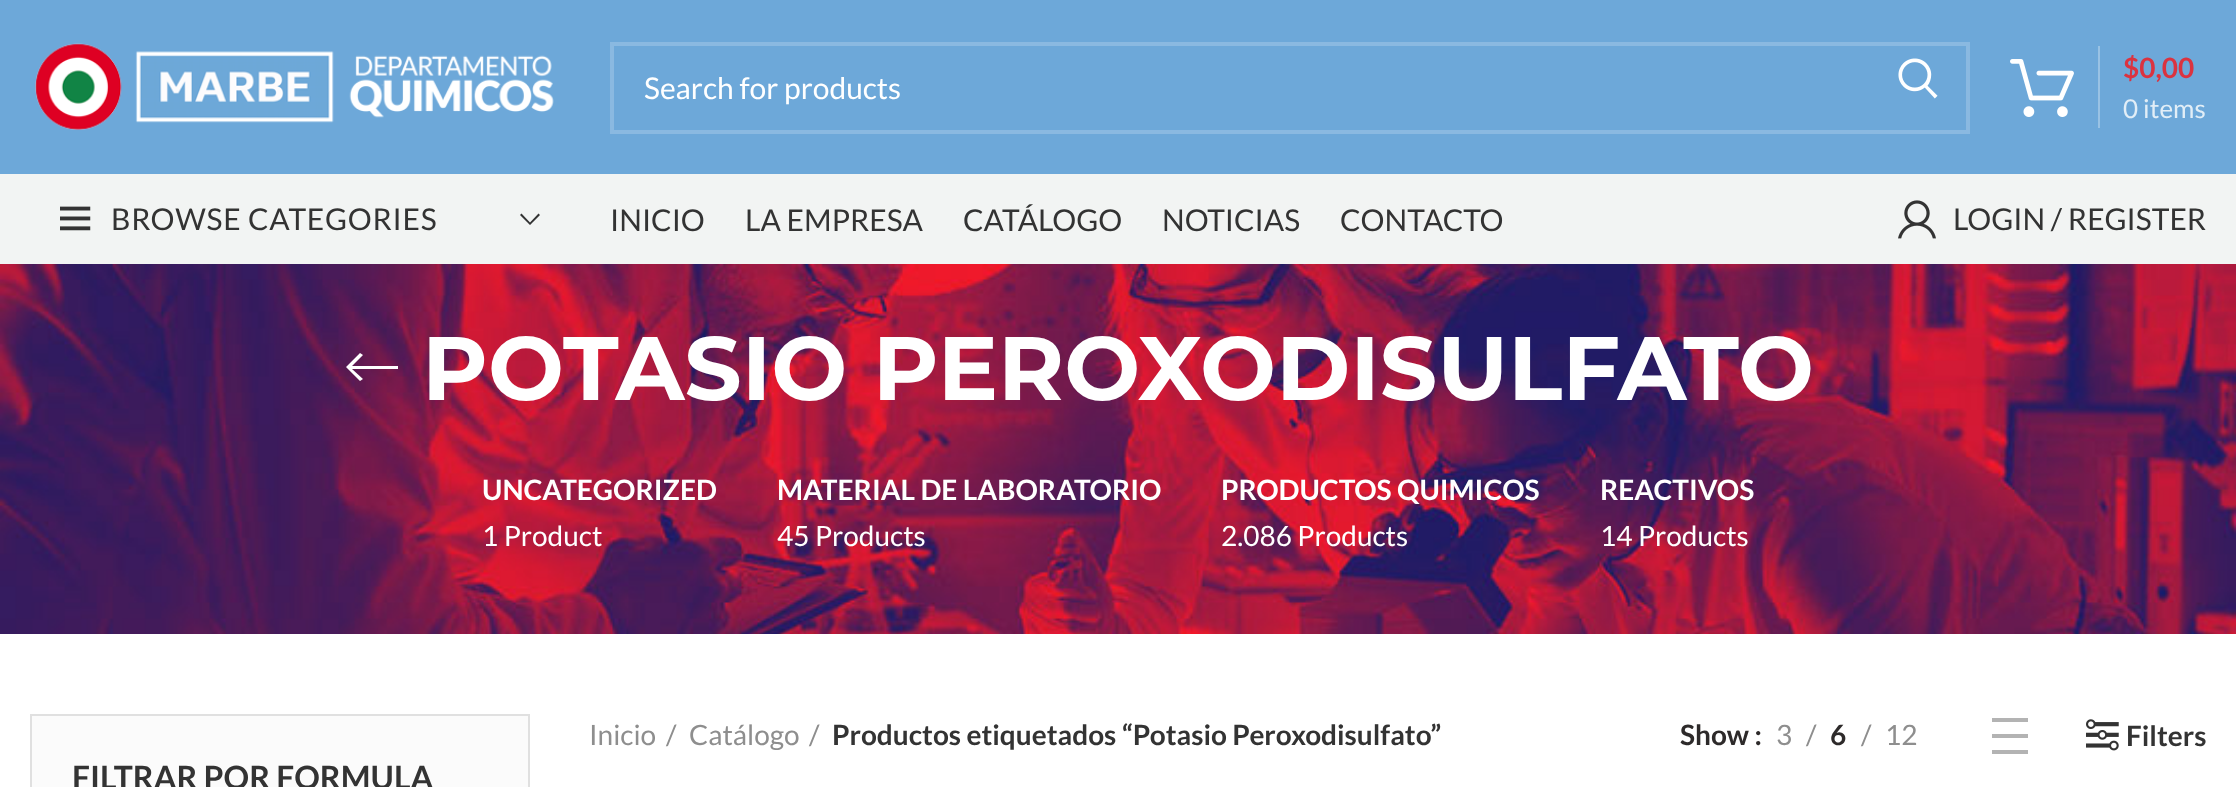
<svg xmlns="http://www.w3.org/2000/svg" width="2236" height="787" viewBox="0 0 2236 787">
  <rect width="100%" height="100%" fill="#ffffff"/>
  <rect x="0" y="0" width="2236" height="174" fill="#6da8d9"/>
  <image x="35" y="43" width="519" height="87" href="img1.png"/>
  <rect x="612" y="44" width="1356" height="88" fill="none" stroke="#8ab9e1" stroke-width="4"/>
  <text x="644" y="99" font-family="Lato" font-size="30" fill="#ffffff">Search for products</text>
  <image x="1898" y="58" width="40" height="41" href="img2.png"/>
  <image x="2010" y="59" width="64" height="58" href="img3.png"/>
  <rect x="2098" y="46" width="2" height="82" fill="#99c2e4"/>
  <text x="2123" y="78" font-family="Lato" font-size="28" font-weight="bold" fill="#db3340">$0,00</text>
  <text x="2123" y="118" font-family="Lato" font-size="26" fill="#e2eef7">0 items</text>
  <rect x="0" y="174" width="2236" height="90" fill="#f2f4f3"/>
  <image x="60" y="206" width="31" height="25" href="img4.png"/>
  <text x="111" y="230" font-family="Lato" font-size="30" letter-spacing="0.75" fill="#333333">BROWSE CATEGORIES</text>
  <path d="M538.5 213.5L540 215L530 225L520 215L521.5 213.5L530 222.5Z" fill="#333333"/>
  <text x="610" y="231" font-family="Lato" font-size="30" fill="#333333">INICIO</text>
  <text x="745" y="231" font-family="Lato" font-size="30" fill="#333333">LA EMPRESA</text>
  <text x="963" y="231" font-family="Lato" font-size="30" fill="#333333">CATÁLOGO</text>
  <text x="1162" y="231" font-family="Lato" font-size="30" fill="#333333">NOTICIAS</text>
  <text x="1340" y="231" font-family="Lato" font-size="30" fill="#333333">CONTACTO</text>
  <image x="1898" y="200" width="38" height="39" href="img5.png"/>
  <text x="1953" y="230" font-family="Lato" font-size="30" fill="#333333">LOGIN / REGISTER</text>
  <image x="0" y="264" width="2236" height="370" href="img6.png"/>
  <path d="M398 366V369H352L363 379L360 381L346 367L360 353L363 355L352 366Z" fill="#ffffff"/>
  <text x="422" y="400" font-family="Montserrat" font-size="90" font-weight="bold" fill="#ffffff">POTASIO PEROXODISULFATO</text>
  <text x="482" y="500" font-family="Lato" font-size="28" font-weight="bold" fill="#ffffff">UNCATEGORIZED</text>
  <text x="482" y="546" font-family="Lato" font-size="28" fill="#ffffff">1 Product</text>
  <text x="777" y="500" font-family="Lato" font-size="28" font-weight="bold" fill="#ffffff">MATERIAL DE LABORATORIO</text>
  <text x="777" y="546" font-family="Lato" font-size="28" fill="#ffffff">45 Products</text>
  <text x="1221" y="500" font-family="Lato" font-size="28" font-weight="bold" fill="#ffffff">PRODUCTOS QUIMICOS</text>
  <text x="1221" y="546" font-family="Lato" font-size="28" fill="#ffffff">2.086 Products</text>
  <text x="1600" y="500" font-family="Lato" font-size="28" font-weight="bold" fill="#ffffff">REACTIVOS</text>
  <text x="1600" y="546" font-family="Lato" font-size="28" fill="#ffffff">14 Products</text>
  <text x="589" y="745" font-family="Lato" font-size="28" fill="#8e8e8e">Inicio</text>
  <text x="666" y="745" font-family="Lato" font-size="28" fill="#8e8e8e">/</text>
  <text x="689" y="745" font-family="Lato" font-size="28" fill="#8e8e8e">Catálogo</text>
  <text x="809" y="745" font-family="Lato" font-size="28" fill="#8e8e8e">/</text>
  <text x="832" y="745" font-family="Lato" font-size="28" font-weight="bold" fill="#333333">Productos etiquetados “Potasio Peroxodisulfato”</text>
  <text x="1680" y="745" font-family="Lato" font-size="28" font-weight="bold" fill="#2d2a2a">Show :</text>
  <text x="1776" y="745" font-family="Lato" font-size="28" fill="#8e8e8e">3</text>
  <text x="1806" y="745" font-family="Lato" font-size="28" fill="#8e8e8e">/</text>
  <text x="1830" y="745" font-family="Lato" font-size="28" font-weight="bold" fill="#2d2a2a">6</text>
  <text x="1861" y="745" font-family="Lato" font-size="28" fill="#8e8e8e">/</text>
  <text x="1885" y="745" font-family="Lato" font-size="28" fill="#8e8e8e">12</text>
  <rect x="1992" y="718" width="36" height="4" fill="#b3b3b3"/>
  <rect x="1992" y="750" width="36" height="4" fill="#b3b3b3"/>
  <rect x="1992" y="734" width="36" height="4" fill="#b3b3b3"/>
  <image x="2086" y="719" width="33" height="32" href="img7.png"/>
  <text x="2126" y="746" font-family="Lato" font-size="28" font-weight="bold" fill="#333333">Filters</text>
  <rect x="31" y="715" width="498" height="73" fill="#fbfbfb" stroke="#e0e0e0" stroke-width="2"/>
  <text x="72" y="789" font-family="Lato" font-size="32" font-weight="bold" fill="#333333">FILTRAR POR FORMULA</text>
</svg>
